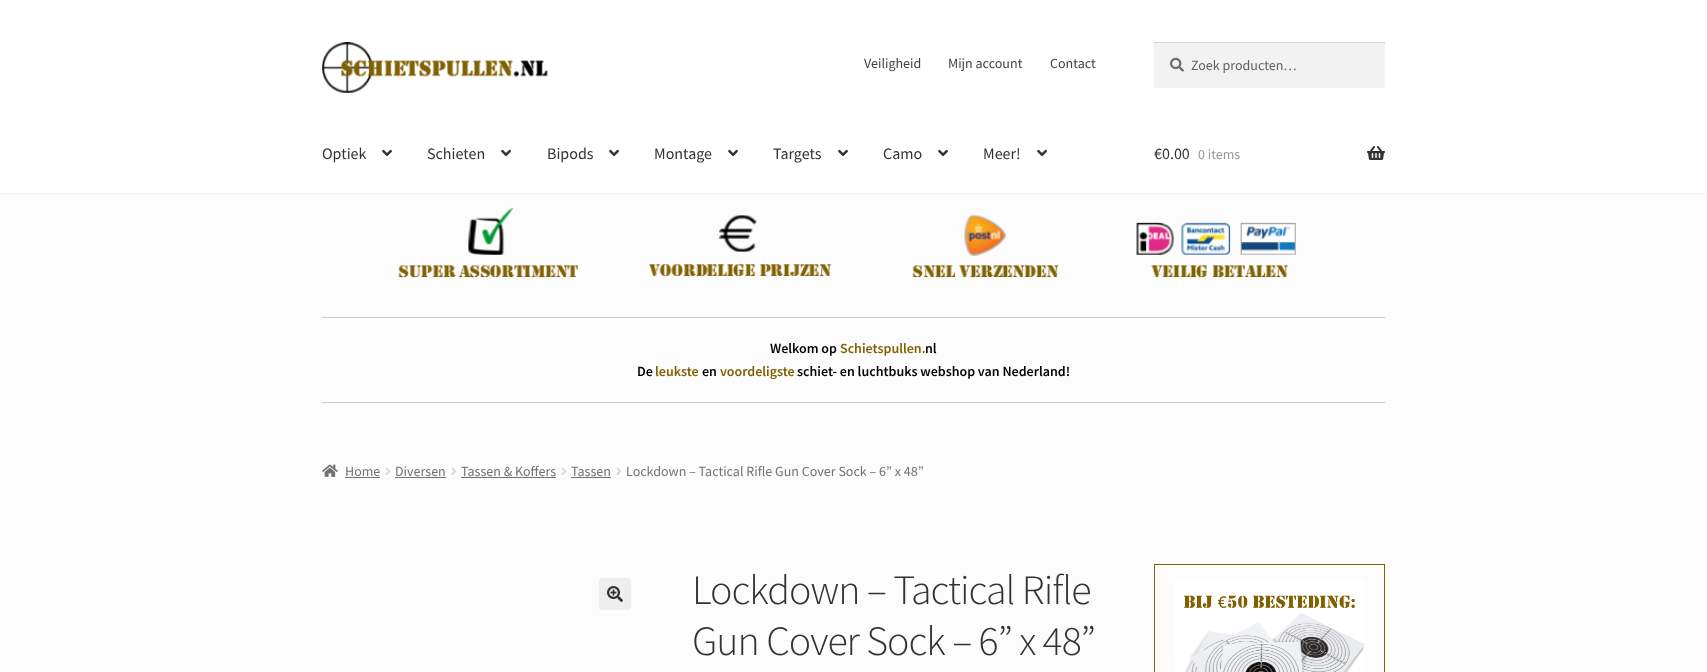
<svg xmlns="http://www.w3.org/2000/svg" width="1707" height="672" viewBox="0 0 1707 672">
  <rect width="100%" height="100%" fill="#fcfcfc"/>
  <rect x="0" y="0" width="1707" height="193" fill="#ffffff"/>
  <rect x="0" y="193" width="1707" height="1" fill="#f0f0f0"/>
  <image x="322" y="42" width="226" height="51" href="img1.png"/>
  <text x="864" y="68" font-family="Source Sans Pro" font-size="14" fill="#404040">Veiligheid</text>
  <text x="948" y="68" font-family="Source Sans Pro" font-size="14" fill="#404040">Mijn account</text>
  <text x="1050" y="68" font-family="Source Sans Pro" font-size="14" fill="#404040">Contact</text>
  <rect x="1154" y="43" width="231" height="45" fill="#f2f2f2"/>
  <image x="1170" y="57" width="14" height="15" href="img2.png"/>
  <rect x="1154" y="42" width="231" height="1" fill="#d4d4d4"/>
  <text x="1191" y="70" font-family="Source Sans Pro" font-size="14" fill="#616161">Zoek producten…</text>
  <text x="322" y="159" font-family="Source Sans Pro" font-size="16" fill="#333333">Optiek</text>
  <image x="382" y="149" width="10" height="8" href="img3.png"/>
  <text x="427" y="159" font-family="Source Sans Pro" font-size="16" fill="#333333">Schieten</text>
  <image x="501" y="149" width="10" height="8" href="img3.png"/>
  <text x="547" y="159" font-family="Source Sans Pro" font-size="16" fill="#333333">Bipods</text>
  <image x="609" y="149" width="10" height="8" href="img3.png"/>
  <text x="654" y="159" font-family="Source Sans Pro" font-size="16" fill="#333333">Montage</text>
  <image x="728" y="149" width="10" height="8" href="img3.png"/>
  <text x="773" y="159" font-family="Source Sans Pro" font-size="16" fill="#333333">Targets</text>
  <image x="838" y="149" width="10" height="8" href="img3.png"/>
  <text x="883" y="159" font-family="Source Sans Pro" font-size="16" fill="#333333">Camo</text>
  <image x="938" y="149" width="10" height="8" href="img3.png"/>
  <text x="983" y="159" font-family="Source Sans Pro" font-size="16" fill="#333333">Meer!</text>
  <image x="1037" y="149" width="10" height="8" href="img3.png"/>
  <text x="1154" y="159" font-family="Source Sans Pro" font-size="16" fill="#333333">€0.00</text>
  <text x="1198" y="159" font-family="Source Sans Pro" font-size="14" fill="#999999">0 items</text>
  <image x="1367" y="146" width="18" height="14" href="img4.png"/>
  <image x="398" y="208" width="898" height="70" href="img5.png"/>
  <rect x="322" y="317" width="1063" height="1" fill="#cccccc"/>
  <text x="770" y="353" font-family="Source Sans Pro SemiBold" font-size="14" font-weight="600" fill="#000000">Welkom op</text>
  <text x="840" y="353" font-family="Source Sans Pro SemiBold" font-size="14" font-weight="600" fill="#806000">Schietspullen.</text>
  <text x="925" y="353" font-family="Source Sans Pro SemiBold" font-size="14" font-weight="600" fill="#000000">nl</text>
  <text x="637" y="376" font-family="Source Sans Pro SemiBold" font-size="14" font-weight="600" fill="#000000">De</text>
  <text x="655" y="376" font-family="Source Sans Pro SemiBold" font-size="14" font-weight="600" fill="#806000">leukste</text>
  <text x="702" y="376" font-family="Source Sans Pro SemiBold" font-size="14" font-weight="600" fill="#000000">en</text>
  <text x="720" y="376" font-family="Source Sans Pro SemiBold" font-size="14" font-weight="600" fill="#806000">voordeligste</text>
  <text x="797" y="376" font-family="Source Sans Pro SemiBold" font-size="14" font-weight="600" fill="#000000">schiet- en luchtbuks webshop van Nederland!</text>
  <rect x="322" y="402" width="1063" height="1" fill="#cccccc"/>
  <image x="322" y="464" width="16" height="13" href="img6.png"/>
  <text x="345" y="476" font-family="Source Sans Pro" font-size="14" fill="#727272">Home</text>
  <rect x="345" y="477" width="35" height="1" fill="#727272"/>
  <image x="385" y="467" width="6" height="8" href="img7.png"/>
  <text x="395" y="476" font-family="Source Sans Pro" font-size="14" fill="#727272">Diversen</text>
  <rect x="395" y="477" width="51" height="1" fill="#727272"/>
  <image x="451" y="467" width="6" height="8" href="img7.png"/>
  <text x="461" y="476" font-family="Source Sans Pro" font-size="14" fill="#727272">Tassen &amp; Koffers</text>
  <rect x="461" y="477" width="95" height="1" fill="#727272"/>
  <image x="561" y="467" width="6" height="8" href="img7.png"/>
  <text x="571" y="476" font-family="Source Sans Pro" font-size="14" fill="#727272">Tassen</text>
  <rect x="571" y="477" width="40" height="1" fill="#727272"/>
  <image x="616" y="467" width="6" height="8" href="img7.png"/>
  <text x="626" y="476" font-family="Source Sans Pro" font-size="14" fill="#727272">Lockdown – Tactical Rifle Gun Cover Sock – 6” x 48”</text>
  <rect x="599" y="578" width="32" height="32" rx="3" fill="#eeeeee"/>
  <image x="607" y="586" width="16" height="16" href="img8.png"/>
  <text x="692" y="604" font-family="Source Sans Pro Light" font-size="41.9" font-weight="300" letter-spacing="-1" fill="#333333">Lockdown – Tactical Rifle</text>
  <text x="692" y="655" font-family="Source Sans Pro Light" font-size="41.9" font-weight="300" letter-spacing="-1" fill="#333333">Gun Cover Sock – 6” x 48”</text>
  <rect x="1154" y="564" width="231" height="1" fill="#806000"/>
  <rect x="1384" y="564" width="1" height="108" fill="#806000"/>
  <rect x="1154" y="564" width="1" height="108" fill="#806000"/>
  <image x="1175" y="579" width="190" height="93" href="img9.png"/>
</svg>
